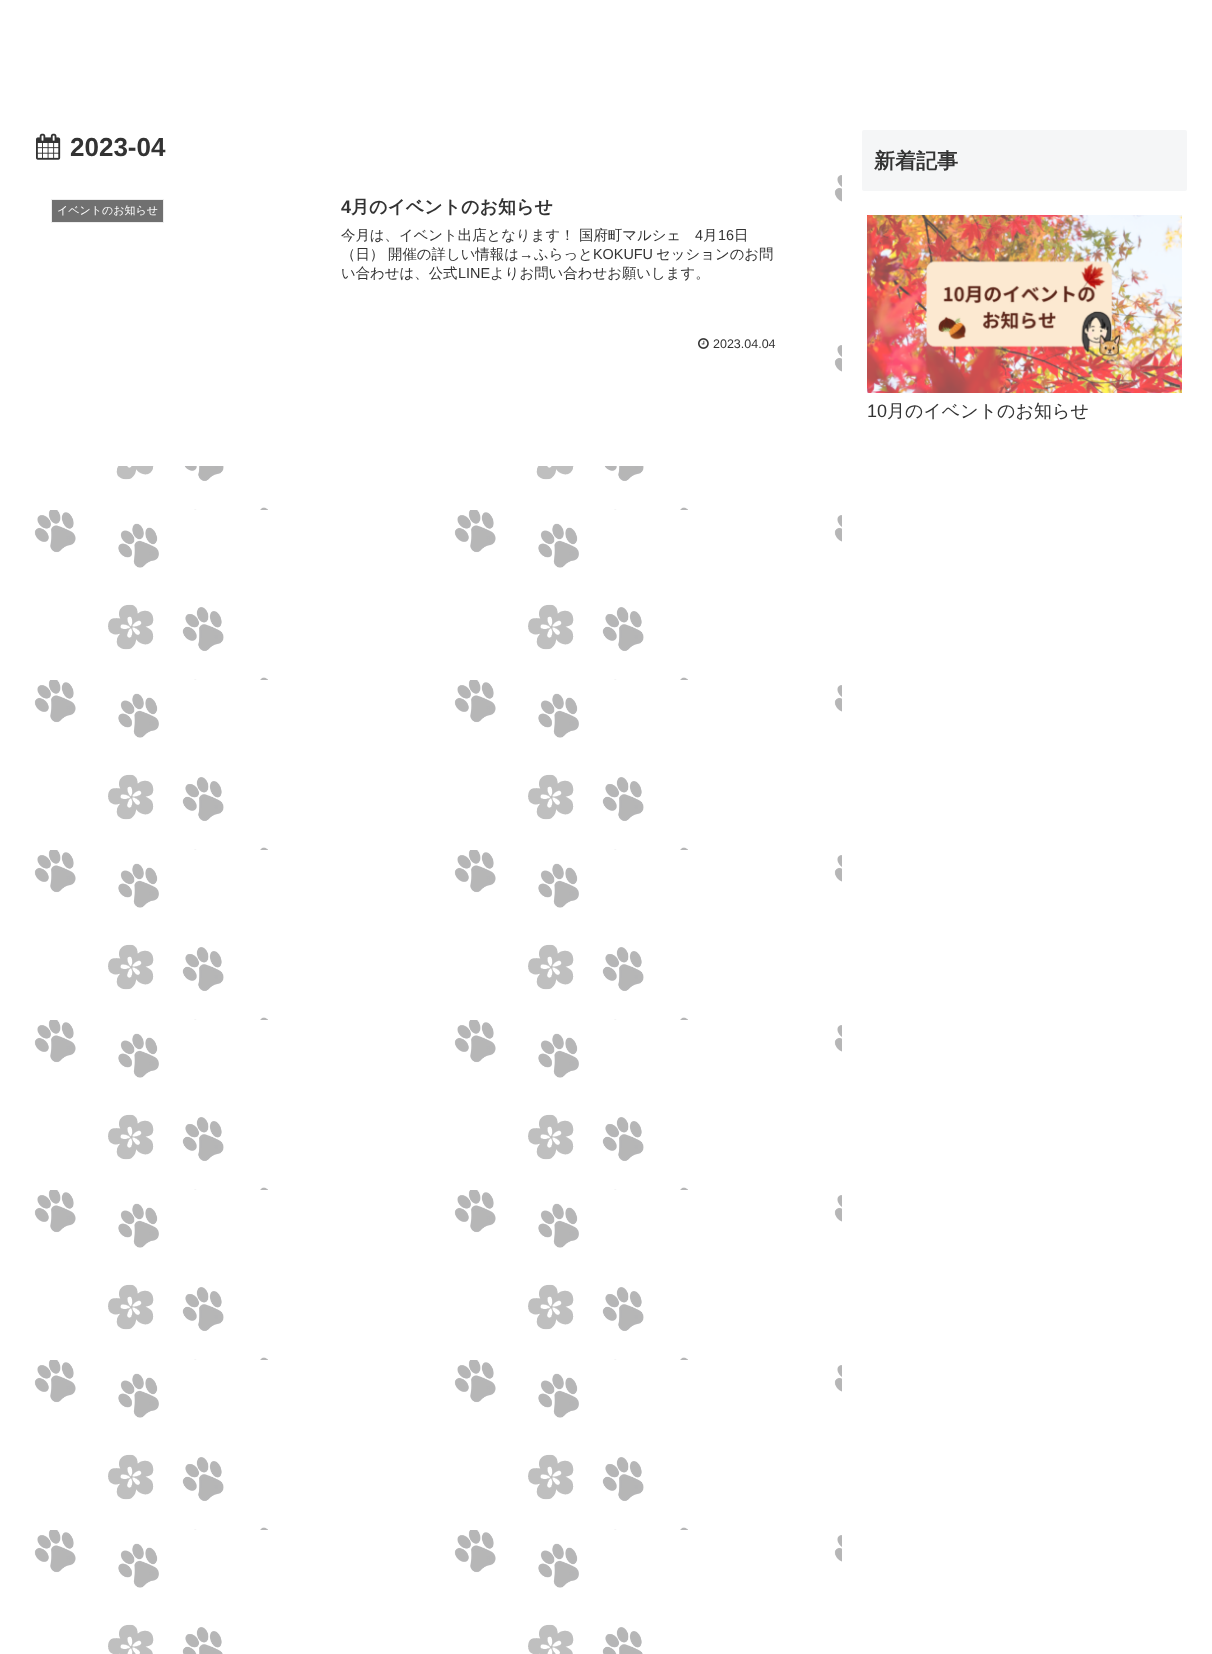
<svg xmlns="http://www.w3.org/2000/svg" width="1212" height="1654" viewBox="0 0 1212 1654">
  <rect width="100%" height="100%" fill="#ffffff"/>
  <image x="0" y="70" width="1212" height="1584" href="img1.png"/>
  <rect x="6" y="94" width="817" height="372" rx="4" fill="#ffffff"/>
  <image x="36" y="133" width="25" height="27" href="img2.png"/>
  <text x="70" y="156" font-family="Liberation Sans" font-size="26" font-weight="bold" fill="#333333">2023-04</text>
  <rect x="51.5" y="199.5" width="112" height="23" fill="#707070" stroke="#eeeeee"/>
  <text x="57" y="214" font-family="WenQuanYi Zen Hei" font-size="11" font-weight="500" fill="#ffffff">イベントのお知らせ</text>
  <text x="341" y="213" font-family="Liberation Sans" font-size="18" font-weight="bold" fill="#333333">4</text>
  <text x="351" y="213" font-family="WenQuanYi Zen Hei" font-size="18" font-weight="bold" fill="#333333">月のイベントのお知らせ</text>
  <text x="341" y="240" font-family="WenQuanYi Zen Hei" font-size="14.4" font-weight="500" fill="#333333">今月は、イベント出店となります！</text>
  <text x="579" y="240" font-family="WenQuanYi Zen Hei" font-size="14.4" font-weight="500" fill="#333333">国府町マルシェ</text>
  <text x="695" y="240" font-family="Liberation Sans" font-size="14.4" fill="#333333">4</text>
  <text x="703" y="240" font-family="WenQuanYi Zen Hei" font-size="14.4" font-weight="500" fill="#333333">月</text>
  <text x="718" y="240" font-family="Liberation Sans" font-size="14.4" fill="#333333">16</text>
  <text x="734" y="240" font-family="WenQuanYi Zen Hei" font-size="14.4" font-weight="500" fill="#333333">日</text>
  <text x="341" y="259" font-family="WenQuanYi Zen Hei" font-size="14.4" font-weight="500" fill="#333333">（日）</text>
  <text x="388" y="259" font-family="WenQuanYi Zen Hei" font-size="14.4" font-weight="500" fill="#333333">開催の詳しい情報は</text>
  <text x="519" y="259" font-family="Liberation Sans" font-size="14.4" fill="#333333">→</text>
  <text x="534" y="259" font-family="WenQuanYi Zen Hei" font-size="14.4" font-weight="500" fill="#333333">ふらっと</text>
  <text x="593" y="259" font-family="Liberation Sans" font-size="14.4" fill="#333333">KOKUFU</text>
  <text x="656" y="259" font-family="WenQuanYi Zen Hei" font-size="14.4" font-weight="500" fill="#333333">セッションのお問</text>
  <text x="341" y="278" font-family="WenQuanYi Zen Hei" font-size="14.4" font-weight="500" fill="#333333">い合わせは、公式</text>
  <text x="458" y="278" font-family="Liberation Sans" font-size="14.4" fill="#333333">LINE</text>
  <text x="490" y="278" font-family="WenQuanYi Zen Hei" font-size="14.4" font-weight="500" fill="#333333">よりお問い合わせお願いします。</text>
  <image x="698" y="338" width="11" height="11" href="img3.png"/>
  <text x="713" y="348" font-family="Liberation Sans" font-size="12.5" fill="#333333">2023.04.04</text>
  <rect x="842" y="94" width="364" height="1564" rx="4" fill="#ffffff"/>
  <rect x="862" y="130" width="325" height="61" rx="2" fill="#f5f6f7"/>
  <text x="874" y="168" font-family="WenQuanYi Zen Hei" font-size="21" font-weight="bold" fill="#333333">新着記事</text>
  <image x="867" y="215" width="315" height="178" href="img4.png"/>
  <text x="867" y="417" font-family="Liberation Sans" font-size="18" fill="#333333">10</text>
  <text x="887" y="417" font-family="WenQuanYi Zen Hei" font-size="18" font-weight="500" fill="#333333">月のイベントのお知らせ</text>
</svg>
